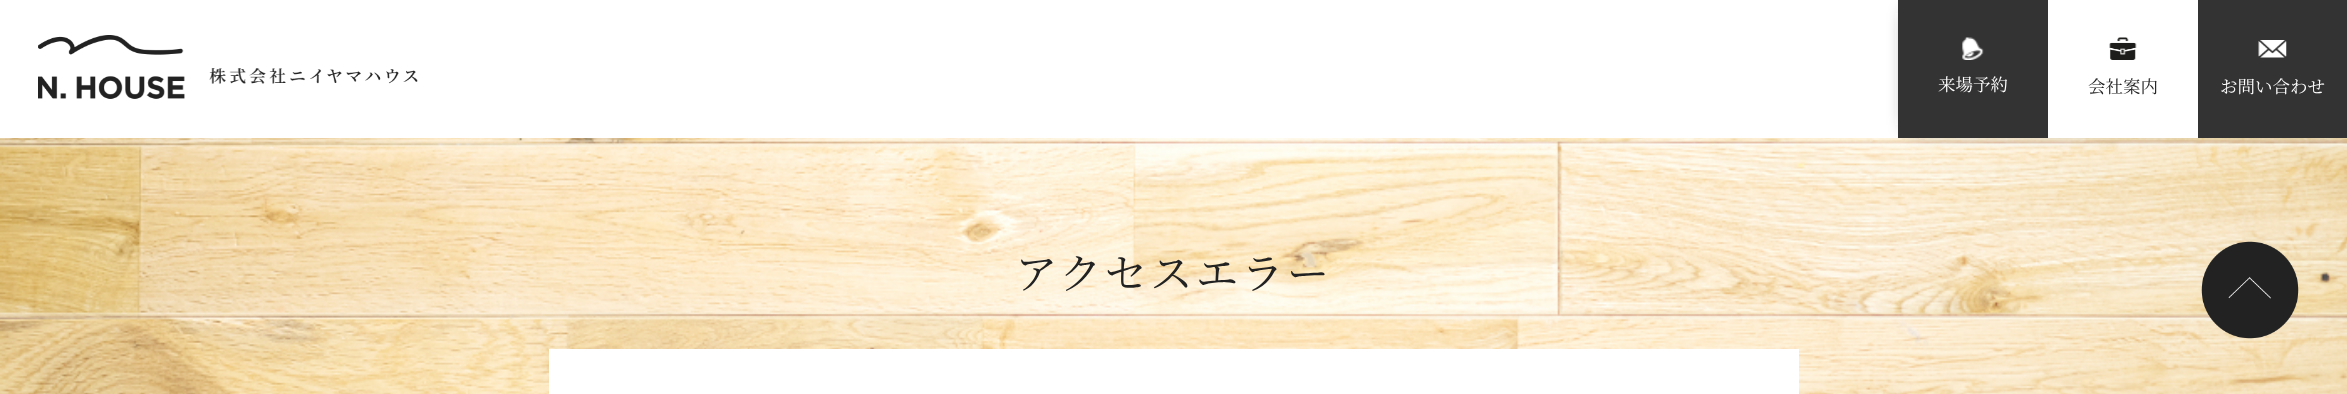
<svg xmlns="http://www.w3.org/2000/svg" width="2347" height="394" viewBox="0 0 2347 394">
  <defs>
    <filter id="blur1" x="-50%" y="-200%" width="200%" height="500%"><feGaussianBlur stdDeviation="10"/></filter>
  </defs>
  <rect width="100%" height="100%" fill="#ffffff"/>
  <image x="38" y="35" width="380" height="64" href="img1.png"/>
  <image x="0" y="138" width="2347" height="256" href="img5.png"/>
  <rect x="1910" y="13" width="425" height="112" fill="#333333" filter="url(#blur1)"/>
  <rect x="1898" y="0" width="150" height="138" fill="#333333"/>
  <image x="1962" y="37" width="22" height="23" href="img2.png"/>
  <text x="1938" y="91" font-family="Noto Serif JP" font-size="17.5" fill="#ffffff">来場予約</text>
  <rect x="2048" y="0" width="150" height="138" fill="#ffffff"/>
  <image x="2109" y="37" width="28" height="23" href="img3.png"/>
  <text x="2088" y="93" font-family="Noto Serif JP" font-size="17.5" fill="#222222">会社案内</text>
  <rect x="2198" y="0" width="149" height="138" fill="#333333"/>
  <image x="2258" y="40" width="29" height="18" href="img4.png"/>
  <text x="2220" y="93" font-family="Noto Serif JP" font-size="17.5" fill="#ffffff">お問い合わせ</text>
  <text x="1015" y="289" font-family="Noto Serif JP" font-size="42.5" letter-spacing="3" fill="#222222">アクセスエラー</text>
  <rect x="549" y="349" width="1250" height="45" fill="#ffffff"/>
  <image x="2201" y="241" width="98" height="98" href="img6.png"/>
</svg>
